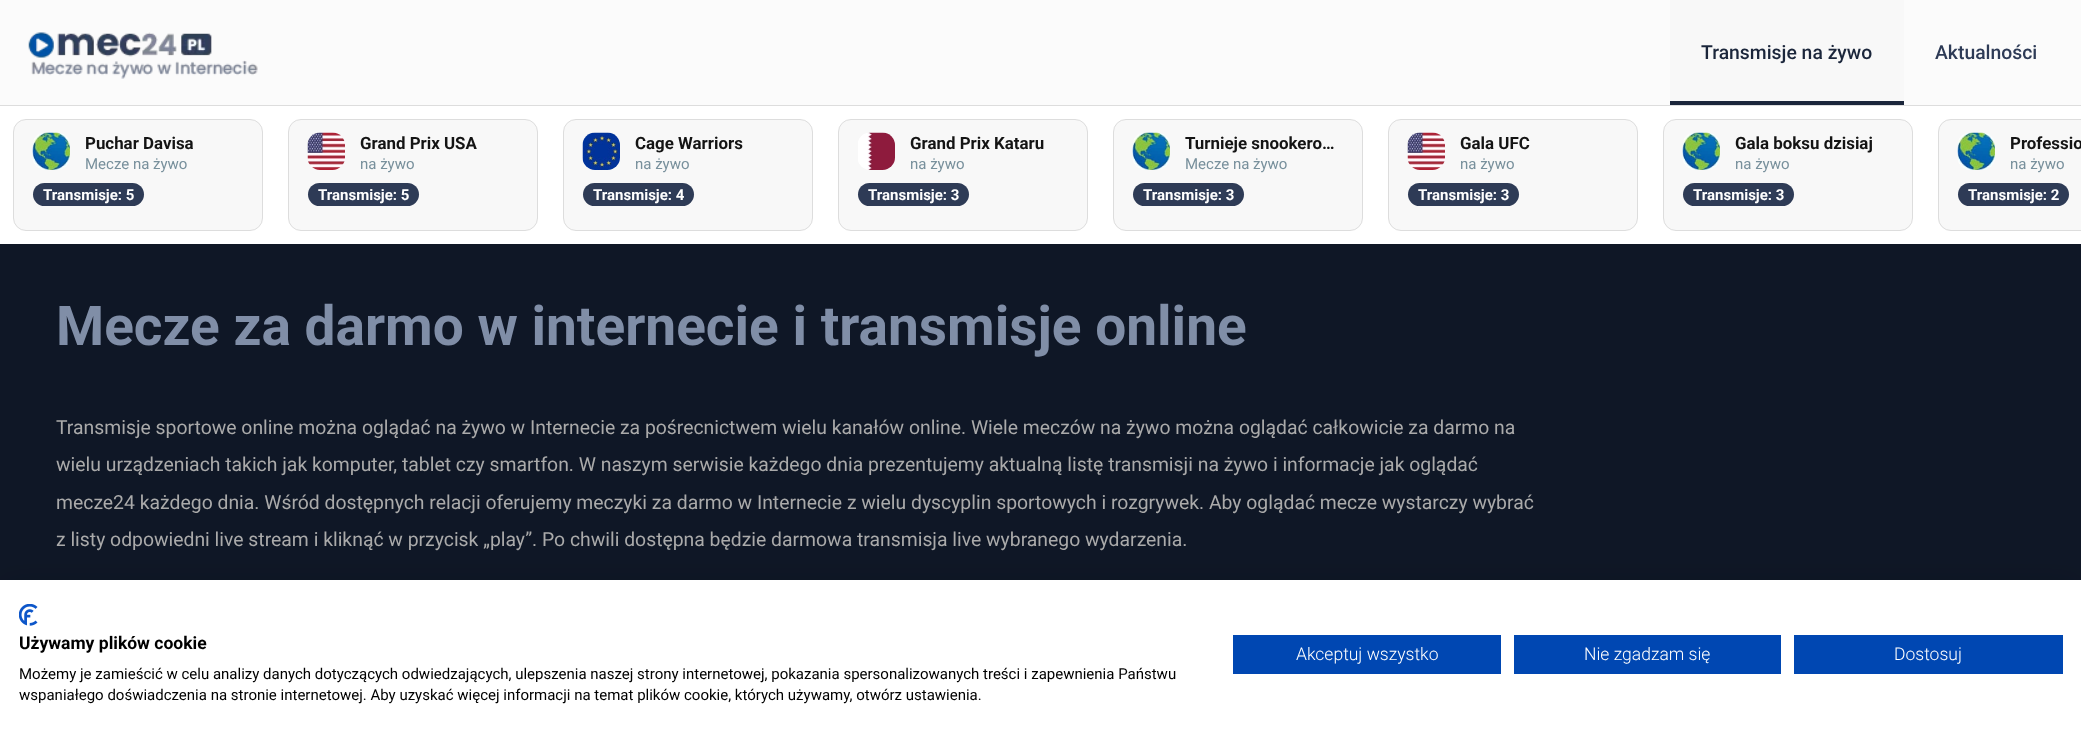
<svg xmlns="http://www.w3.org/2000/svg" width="2081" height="740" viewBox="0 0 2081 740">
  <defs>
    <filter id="blur1" x="-50%" y="-200%" width="200%" height="500%"><feGaussianBlur stdDeviation="15"/></filter>
  </defs>
  <rect width="100%" height="100%" fill="#ffffff"/>
  <rect x="0" y="0" width="2081" height="105" fill="#fbfbfb"/>
  <rect x="0" y="105" width="2081" height="1" fill="#dddddd"/>
  <image x="28" y="32" width="230" height="47" href="img1.png"/>
  <rect x="1670" y="0" width="234" height="101" fill="#f8f8f8"/>
  <rect x="1670" y="101" width="234" height="4" fill="#1b263b"/>
  <text x="1701" y="59" font-family="Roboto" font-size="19.38" font-weight="500" fill="#1b263b">Transmisje na żywo</text>
  <text x="1935" y="59" font-family="Roboto" font-size="19.38" font-weight="500" fill="#2e3b56">Aktualności</text>
  <rect x="13.5" y="119.5" width="249" height="111" rx="12.5" fill="#f8f8f8" stroke="#dddddd"/>
  <image x="32" y="132" width="38" height="38" href="img2.png"/>
  <text x="85" y="149" font-family="Roboto" font-size="16.9" font-weight="bold" fill="#141414">Puchar Davisa</text>
  <text x="85" y="169" font-family="Roboto" font-size="15" fill="#78909c">Mecze na żywo</text>
  <rect x="33" y="183" width="111" height="23" rx="11.5" fill="#2e3b56"/>
  <text x="43" y="200" font-family="Roboto" font-size="15" font-weight="bold" fill="#ffffff">Transmisje: 5</text>
  <rect x="288.5" y="119.5" width="249" height="111" rx="12.5" fill="#f8f8f8" stroke="#dddddd"/>
  <image x="307" y="132" width="38" height="38" href="img3.png"/>
  <text x="360" y="149" font-family="Roboto" font-size="16.9" font-weight="bold" fill="#141414">Grand Prix USA</text>
  <text x="360" y="169" font-family="Roboto" font-size="15" fill="#78909c">na żywo</text>
  <rect x="308" y="183" width="111" height="23" rx="11.5" fill="#2e3b56"/>
  <text x="318" y="200" font-family="Roboto" font-size="15" font-weight="bold" fill="#ffffff">Transmisje: 5</text>
  <rect x="563.5" y="119.5" width="249" height="111" rx="12.5" fill="#f8f8f8" stroke="#dddddd"/>
  <image x="582" y="132" width="38" height="38" href="img4.png"/>
  <text x="635" y="149" font-family="Roboto" font-size="16.9" font-weight="bold" fill="#141414">Cage Warriors</text>
  <text x="635" y="169" font-family="Roboto" font-size="15" fill="#78909c">na żywo</text>
  <rect x="583" y="183" width="111" height="23" rx="11.5" fill="#2e3b56"/>
  <text x="593" y="200" font-family="Roboto" font-size="15" font-weight="bold" fill="#ffffff">Transmisje: 4</text>
  <rect x="838.5" y="119.5" width="249" height="111" rx="12.5" fill="#f8f8f8" stroke="#dddddd"/>
  <image x="858" y="132" width="37" height="38" href="img5.png"/>
  <text x="910" y="149" font-family="Roboto" font-size="16.9" font-weight="bold" fill="#141414">Grand Prix Kataru</text>
  <text x="910" y="169" font-family="Roboto" font-size="15" fill="#78909c">na żywo</text>
  <rect x="858" y="183" width="111" height="23" rx="11.5" fill="#2e3b56"/>
  <text x="868" y="200" font-family="Roboto" font-size="15" font-weight="bold" fill="#ffffff">Transmisje: 3</text>
  <rect x="1113.5" y="119.5" width="249" height="111" rx="12.5" fill="#f8f8f8" stroke="#dddddd"/>
  <image x="1132" y="132" width="38" height="38" href="img6.png"/>
  <text x="1185" y="149" font-family="Roboto" font-size="16.9" font-weight="bold" fill="#141414">Turnieje snookero…</text>
  <text x="1185" y="169" font-family="Roboto" font-size="15" fill="#78909c">Mecze na żywo</text>
  <rect x="1133" y="183" width="111" height="23" rx="11.5" fill="#2e3b56"/>
  <text x="1143" y="200" font-family="Roboto" font-size="15" font-weight="bold" fill="#ffffff">Transmisje: 3</text>
  <rect x="1388.5" y="119.5" width="249" height="111" rx="12.5" fill="#f8f8f8" stroke="#dddddd"/>
  <image x="1407" y="132" width="38" height="38" href="img7.png"/>
  <text x="1460" y="149" font-family="Roboto" font-size="16.9" font-weight="bold" fill="#141414">Gala UFC</text>
  <text x="1460" y="169" font-family="Roboto" font-size="15" fill="#78909c">na żywo</text>
  <rect x="1408" y="183" width="111" height="23" rx="11.5" fill="#2e3b56"/>
  <text x="1418" y="200" font-family="Roboto" font-size="15" font-weight="bold" fill="#ffffff">Transmisje: 3</text>
  <rect x="1663.5" y="119.5" width="249" height="111" rx="12.5" fill="#f8f8f8" stroke="#dddddd"/>
  <image x="1682" y="132" width="38" height="38" href="img8.png"/>
  <text x="1735" y="149" font-family="Roboto" font-size="16.9" font-weight="bold" fill="#141414">Gala boksu dzisiaj</text>
  <text x="1735" y="169" font-family="Roboto" font-size="15" fill="#78909c">na żywo</text>
  <rect x="1683" y="183" width="111" height="23" rx="11.5" fill="#2e3b56"/>
  <text x="1693" y="200" font-family="Roboto" font-size="15" font-weight="bold" fill="#ffffff">Transmisje: 3</text>
  <path d="M1951 119H2081V231H1951C1944 231 1938 225 1938 218V132C1938 125 1944 119 1951 119Z" fill="#f8f8f8"/>
  <rect x="1938.5" y="119.5" width="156" height="111" rx="12.5" fill="none" stroke="#dddddd"/>
  <image x="1957" y="132" width="38" height="38" href="img9.png"/>
  <text x="2010" y="149" font-family="Roboto" font-size="16.9" font-weight="bold" fill="#141414">Professio</text>
  <text x="2010" y="169" font-family="Roboto" font-size="15" fill="#78909c">na żywo</text>
  <rect x="1958" y="183" width="111" height="23" rx="11.5" fill="#2e3b56"/>
  <text x="1968" y="200" font-family="Roboto" font-size="15" font-weight="bold" fill="#ffffff">Transmisje: 2</text>
  <rect x="0" y="244" width="2081" height="336" fill="#0f1726"/>
  <text x="56" y="345" font-family="Roboto" font-size="55" font-weight="bold" fill="#808ea7">Mecze za darmo w internecie i transmisje online</text>
  <text x="56" y="434" font-family="Roboto" font-size="19.38" fill="#aaaaaa">Transmisje sportowe online można oglądać na żywo w Internecie za pośrecnictwem wielu kanałów online. Wiele meczów na żywo można oglądać całkowicie za darmo na</text>
  <text x="56" y="471" font-family="Roboto" font-size="19.38" fill="#aaaaaa">wielu urządzeniach takich jak komputer, tablet czy smartfon. W naszym serwisie każdego dnia prezentujemy aktualną listę transmisji na żywo i informacje jak oglądać</text>
  <text x="56" y="509" font-family="Roboto" font-size="19.38" fill="#aaaaaa">mecze24 każdego dnia. Wśród dostępnych relacji oferujemy meczyki za darmo w Internecie z wielu dyscyplin sportowych i rozgrywek. Aby oglądać mecze wystarczy wybrać</text>
  <text x="56" y="546" font-family="Roboto" font-size="19.38" fill="#aaaaaa">z listy odpowiedni live stream i kliknąć w przycisk „play”. Po chwili dostępna będzie darmowa transmisja live wybranego wydarzenia.</text>
  <rect x="0" y="580" width="2081" height="160" fill="#000000" fill-opacity="0.1" filter="url(#blur1)"/>
  <rect x="0" y="580" width="2081" height="160" fill="#ffffff"/>
  <image x="19" y="604" width="19" height="22" href="img10.png"/>
  <text x="19" y="649" font-family="Roboto" font-size="17.5" font-weight="bold" fill="#000000">Używamy plików cookie</text>
  <text x="19" y="679" font-family="Roboto" font-size="15" fill="#000000">Możemy je zamieścić w celu analizy danych dotyczących odwiedzających, ulepszenia naszej strony internetowej, pokazania spersonalizowanych treści i zapewnienia Państwu</text>
  <text x="19" y="700" font-family="Roboto" font-size="15" fill="#000000">wspaniałego doświadczenia na stronie internetowej. Aby uzyskać więcej informacji na temat plików cookie, których używamy, otwórz ustawienia.</text>
  <rect x="1233" y="635" width="268" height="39" fill="#0047b2"/>
  <text x="1296" y="660" font-family="Roboto" font-size="17.5" font-weight="300" fill="#ffffff">Akceptuj wszystko</text>
  <rect x="1514" y="635" width="267" height="39" fill="#0047b2"/>
  <text x="1584" y="660" font-family="Roboto" font-size="17.5" font-weight="300" fill="#ffffff">Nie zgadzam się</text>
  <rect x="1794" y="635" width="269" height="39" fill="#0047b2"/>
  <text x="1894" y="660" font-family="Roboto" font-size="17.5" font-weight="300" fill="#ffffff">Dostosuj</text>
</svg>
